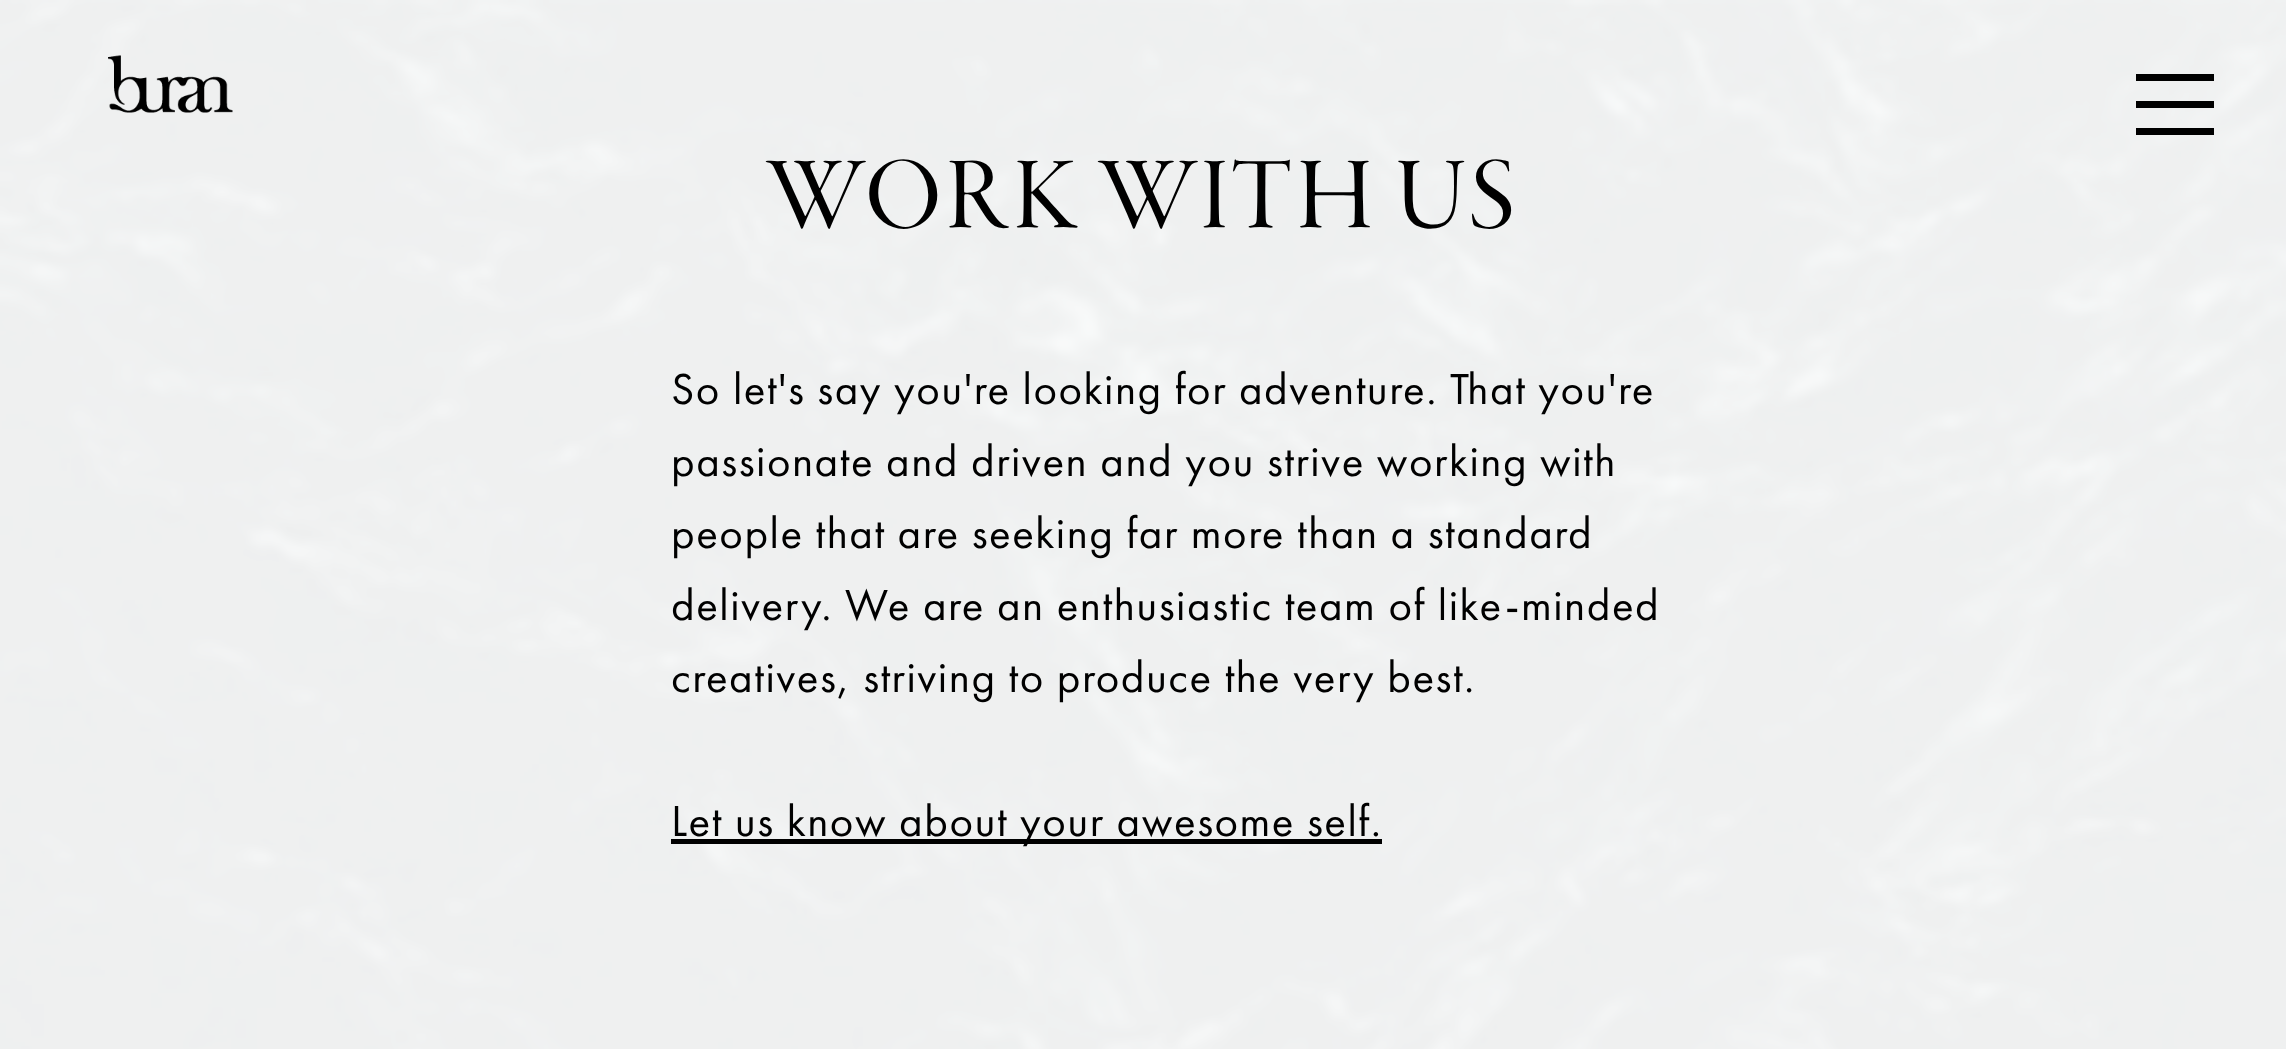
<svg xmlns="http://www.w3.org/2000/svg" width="2286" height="1049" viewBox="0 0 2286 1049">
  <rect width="100%" height="100%" fill="#ffffff"/>
  <image x="0" y="0" width="2286" height="1049" href="img1.png"/>
  <image x="108" y="55" width="125" height="58" href="img2.png"/>
  <rect x="2136" y="101" width="78" height="7" fill="#000000"/>
  <rect x="2136" y="74" width="78" height="7" fill="#000000"/>
  <rect x="2136" y="128" width="78" height="7" fill="#000000"/>
  <text x="767" y="227" font-family="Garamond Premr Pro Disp" font-size="105" letter-spacing="3" fill="#000000">WORK WITH US</text>
  <text x="671" y="404" font-family="Futura PT" font-size="45" letter-spacing="1.5" fill="#000000">So let's say you're looking for adventure. That you're</text>
  <text x="671" y="476" font-family="Futura PT" font-size="45" letter-spacing="1.5" fill="#000000">passionate and driven and you strive working with</text>
  <text x="671" y="548" font-family="Futura PT" font-size="45" letter-spacing="1.5" fill="#000000">people that are seeking far more than a standard</text>
  <text x="671" y="620" font-family="Futura PT" font-size="45" letter-spacing="1.5" fill="#000000">delivery. We are an enthusiastic team of like-minded</text>
  <text x="671" y="692" font-family="Futura PT" font-size="45" letter-spacing="1.5" fill="#000000">creatives, striving to produce the very best.</text>
  <rect x="671" y="839" width="711" height="5" fill="#000000"/>
  <text x="671" y="836" font-family="Futura PT" font-size="45" letter-spacing="1.5" fill="#000000">Let us know about your awesome self.</text>
</svg>
